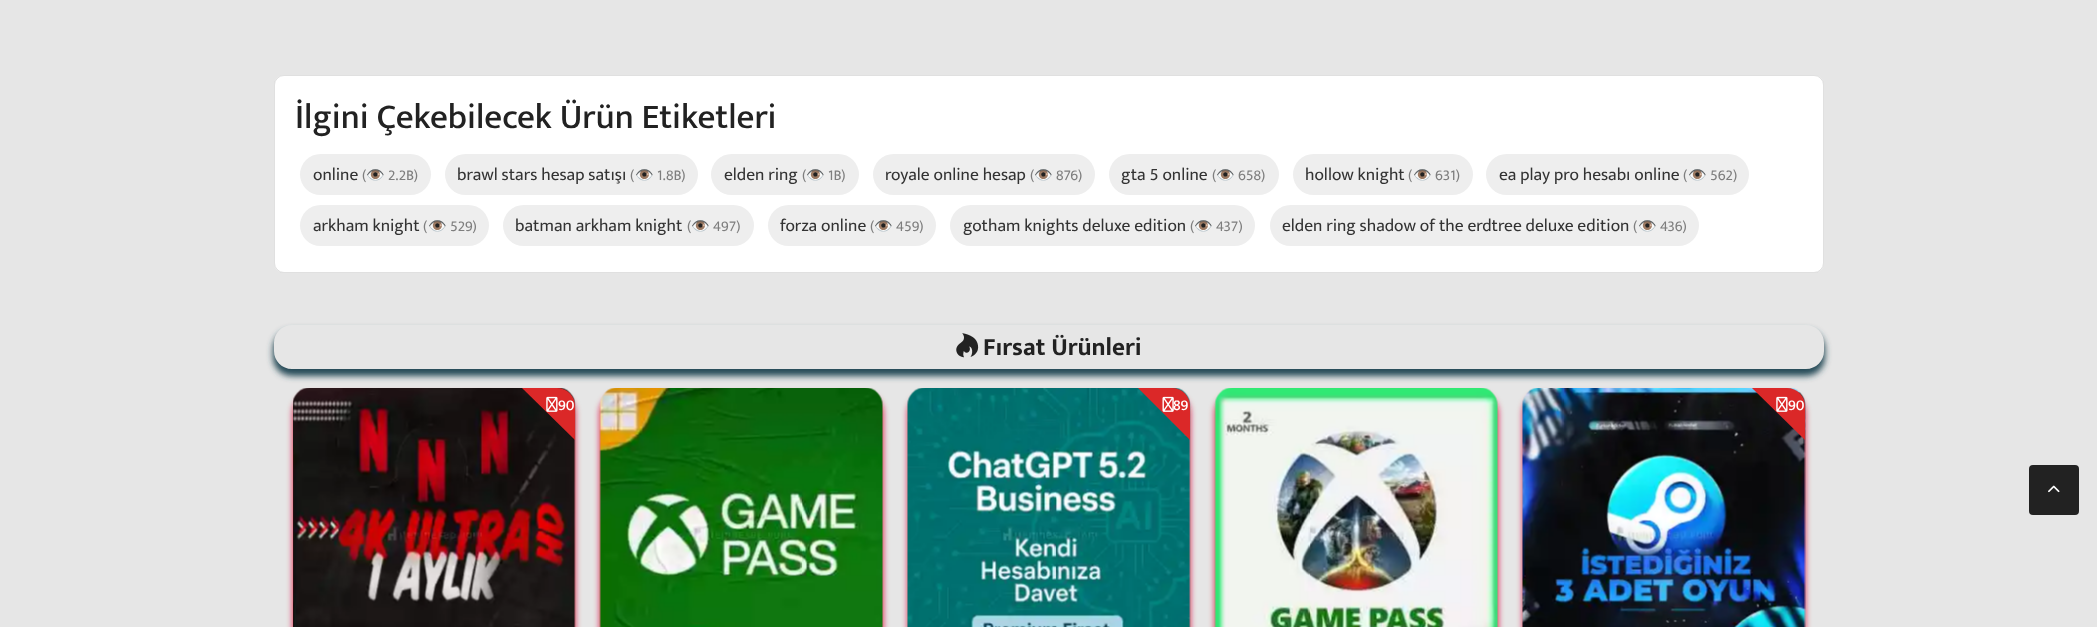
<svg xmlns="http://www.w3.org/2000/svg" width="2097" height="627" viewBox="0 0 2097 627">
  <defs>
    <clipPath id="clip1"><path d="M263 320H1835V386H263ZM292 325H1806C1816 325 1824 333 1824 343V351C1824 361 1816 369 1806 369H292C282 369 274 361 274 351V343C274 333 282 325 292 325Z" clip-rule="evenodd"/></clipPath>
    <filter id="blur1" x="-50%" y="-200%" width="200%" height="500%"><feGaussianBlur stdDeviation="3"/></filter>
  </defs>
  <rect width="100%" height="100%" fill="#e6e6e6"/>
  <rect x="274" y="75" width="1550" height="198" rx="10" fill="#ffffff"/>
  <rect x="274.5" y="75.5" width="1549" height="197" rx="9.5" fill="none" stroke="#000000" stroke-opacity="0.12"/>
  <text x="295" y="128" font-family="Mukta" font-size="35" font-weight="500" fill="#222222">İlgini Çekebilecek Ürün Etiketleri</text>
  <rect x="300" y="154" width="131" height="41" rx="20.5" fill="#eeeeee"/>
  <text x="313" y="180" font-family="Mukta" font-size="17.5" fill="#333333">online</text>
  <text x="362" y="180" font-family="Mukta" font-size="15" fill="#7e7e7e">(</text>
  <text x="366" y="180" font-family="Noto Color Emoji" font-size="15" fill="#7e7e7e">👁️</text>
  <text x="388" y="180" font-family="Mukta" font-size="15" fill="#7e7e7e">2.2B)</text>
  <rect x="445" y="154" width="253" height="41" rx="20.5" fill="#eeeeee"/>
  <text x="457" y="180" font-family="Mukta" font-size="17.5" fill="#333333">brawl stars hesap satışı</text>
  <text x="630" y="180" font-family="Mukta" font-size="15" fill="#7e7e7e">(</text>
  <text x="635" y="180" font-family="Noto Color Emoji" font-size="15" fill="#7e7e7e">👁️</text>
  <text x="657" y="180" font-family="Mukta" font-size="15" fill="#7e7e7e">1.8B)</text>
  <rect x="711" y="154" width="148" height="41" rx="20.5" fill="#eeeeee"/>
  <text x="724" y="180" font-family="Mukta" font-size="17.5" fill="#333333">elden ring</text>
  <text x="802" y="180" font-family="Mukta" font-size="15" fill="#7e7e7e">(</text>
  <text x="806" y="180" font-family="Noto Color Emoji" font-size="15" fill="#7e7e7e">👁️</text>
  <text x="828" y="180" font-family="Mukta" font-size="15" fill="#7e7e7e">1B)</text>
  <rect x="873" y="154" width="222" height="41" rx="20.5" fill="#eeeeee"/>
  <text x="885" y="180" font-family="Mukta" font-size="17.5" fill="#333333">royale online hesap</text>
  <text x="1030" y="180" font-family="Mukta" font-size="15" fill="#7e7e7e">(</text>
  <text x="1034" y="180" font-family="Noto Color Emoji" font-size="15" fill="#7e7e7e">👁️</text>
  <text x="1056" y="180" font-family="Mukta" font-size="15" fill="#7e7e7e">876)</text>
  <rect x="1109" y="154" width="170" height="41" rx="20.5" fill="#eeeeee"/>
  <text x="1121" y="180" font-family="Mukta" font-size="17.5" fill="#333333">gta 5 online</text>
  <text x="1212" y="180" font-family="Mukta" font-size="15" fill="#7e7e7e">(</text>
  <text x="1216" y="180" font-family="Noto Color Emoji" font-size="15" fill="#7e7e7e">👁️</text>
  <text x="1238" y="180" font-family="Mukta" font-size="15" fill="#7e7e7e">658)</text>
  <rect x="1293" y="154" width="180" height="41" rx="20.5" fill="#eeeeee"/>
  <text x="1305" y="180" font-family="Mukta" font-size="17.5" fill="#333333">hollow knight</text>
  <text x="1408" y="180" font-family="Mukta" font-size="15" fill="#7e7e7e">(</text>
  <text x="1413" y="180" font-family="Noto Color Emoji" font-size="15" fill="#7e7e7e">👁️</text>
  <text x="1435" y="180" font-family="Mukta" font-size="15" fill="#7e7e7e">631)</text>
  <rect x="1486" y="154" width="263" height="41" rx="20.5" fill="#eeeeee"/>
  <text x="1499" y="180" font-family="Mukta" font-size="17.5" fill="#333333">ea play pro hesabı online</text>
  <text x="1683" y="180" font-family="Mukta" font-size="15" fill="#7e7e7e">(</text>
  <text x="1688" y="180" font-family="Noto Color Emoji" font-size="15" fill="#7e7e7e">👁️</text>
  <text x="1710" y="180" font-family="Mukta" font-size="15" fill="#7e7e7e">562)</text>
  <rect x="300" y="205" width="189" height="41" rx="20.5" fill="#eeeeee"/>
  <text x="313" y="231" font-family="Mukta" font-size="17.5" fill="#333333">arkham knight</text>
  <text x="423" y="231" font-family="Mukta" font-size="15" fill="#7e7e7e">(</text>
  <text x="428" y="231" font-family="Noto Color Emoji" font-size="15" fill="#7e7e7e">👁️</text>
  <text x="450" y="231" font-family="Mukta" font-size="15" fill="#7e7e7e">529)</text>
  <rect x="503" y="205" width="251" height="41" rx="20.5" fill="#eeeeee"/>
  <text x="515" y="231" font-family="Mukta" font-size="17.5" fill="#333333">batman arkham knight</text>
  <text x="687" y="231" font-family="Mukta" font-size="15" fill="#7e7e7e">(</text>
  <text x="691" y="231" font-family="Noto Color Emoji" font-size="15" fill="#7e7e7e">👁️</text>
  <text x="713" y="231" font-family="Mukta" font-size="15" fill="#7e7e7e">497)</text>
  <rect x="768" y="205" width="168" height="41" rx="20.5" fill="#eeeeee"/>
  <text x="780" y="231" font-family="Mukta" font-size="17.5" fill="#333333">forza online</text>
  <text x="870" y="231" font-family="Mukta" font-size="15" fill="#7e7e7e">(</text>
  <text x="874" y="231" font-family="Noto Color Emoji" font-size="15" fill="#7e7e7e">👁️</text>
  <text x="896" y="231" font-family="Mukta" font-size="15" fill="#7e7e7e">459)</text>
  <rect x="950" y="205" width="305" height="41" rx="20.5" fill="#eeeeee"/>
  <text x="963" y="231" font-family="Mukta" font-size="17.5" fill="#333333">gotham knights deluxe edition</text>
  <text x="1190" y="231" font-family="Mukta" font-size="15" fill="#7e7e7e">(</text>
  <text x="1194" y="231" font-family="Noto Color Emoji" font-size="15" fill="#7e7e7e">👁️</text>
  <text x="1216" y="231" font-family="Mukta" font-size="15" fill="#7e7e7e">437)</text>
  <rect x="1270" y="205" width="429" height="41" rx="20.5" fill="#eeeeee"/>
  <text x="1282" y="231" font-family="Mukta" font-size="17.5" fill="#333333">elden ring shadow of the erdtree deluxe edition</text>
  <text x="1633" y="231" font-family="Mukta" font-size="15" fill="#7e7e7e">(</text>
  <text x="1638" y="231" font-family="Noto Color Emoji" font-size="15" fill="#7e7e7e">👁️</text>
  <text x="1660" y="231" font-family="Mukta" font-size="15" fill="#7e7e7e">436)</text>
  <g clip-path="url(#clip1)">
    <rect x="273" y="330" width="1552" height="46" rx="19" fill="#284c58" filter="url(#blur1)"/>
  </g>
  <image x="956" y="333" width="23" height="25" href="img1.png"/>
  <text x="983" y="355" font-family="Mukta" font-size="25" font-weight="bold" fill="#222222">Fırsat Ürünleri</text>
  <rect x="293" y="394" width="282" height="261" rx="19" fill="#dc143c" filter="url(#blur1)"/>
  <image x="293" y="388" width="283" height="239" href="img2.png"/>
  <path d="M575 440V406C575 396 567 388 557 388H522Z" fill="#db2828"/>
  <image x="546" y="396" width="12" height="16" href="img3.png"/>
  <text x="558" y="410" font-family="Mukta" font-size="15" font-weight="500" fill="#ffffff">90</text>
  <rect x="600" y="394" width="283" height="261" rx="19" fill="#dc143c" filter="url(#blur1)"/>
  <image x="599" y="388" width="284" height="239" href="img4.png"/>
  <rect x="908" y="394" width="282" height="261" rx="19" fill="#dc143c" filter="url(#blur1)"/>
  <image x="907" y="388" width="284" height="239" href="img5.png"/>
  <path d="M1190 440V406C1190 396 1182 388 1172 388H1138Z" fill="#db2828"/>
  <image x="1162" y="396" width="12" height="16" href="img6.png"/>
  <text x="1173" y="410" font-family="Mukta" font-size="15" font-weight="500" fill="#ffffff">89</text>
  <rect x="1215" y="394" width="283" height="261" rx="19" fill="#dc143c" filter="url(#blur1)"/>
  <image x="1214" y="388" width="284" height="239" href="img7.png"/>
  <rect x="1523" y="394" width="282" height="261" rx="19" fill="#dc143c" filter="url(#blur1)"/>
  <image x="1522" y="388" width="284" height="239" href="img8.png"/>
  <path d="M1805 440V406C1805 396 1797 388 1787 388H1752Z" fill="#db2828"/>
  <image x="1776" y="396" width="12" height="16" href="img3.png"/>
  <text x="1788" y="410" font-family="Mukta" font-size="15" font-weight="500" fill="#ffffff">90</text>
  <rect x="2029" y="465" width="50" height="50" rx="4" fill="#222222"/>
  <image x="2048" y="485" width="12" height="8" href="img9.png"/>
</svg>
